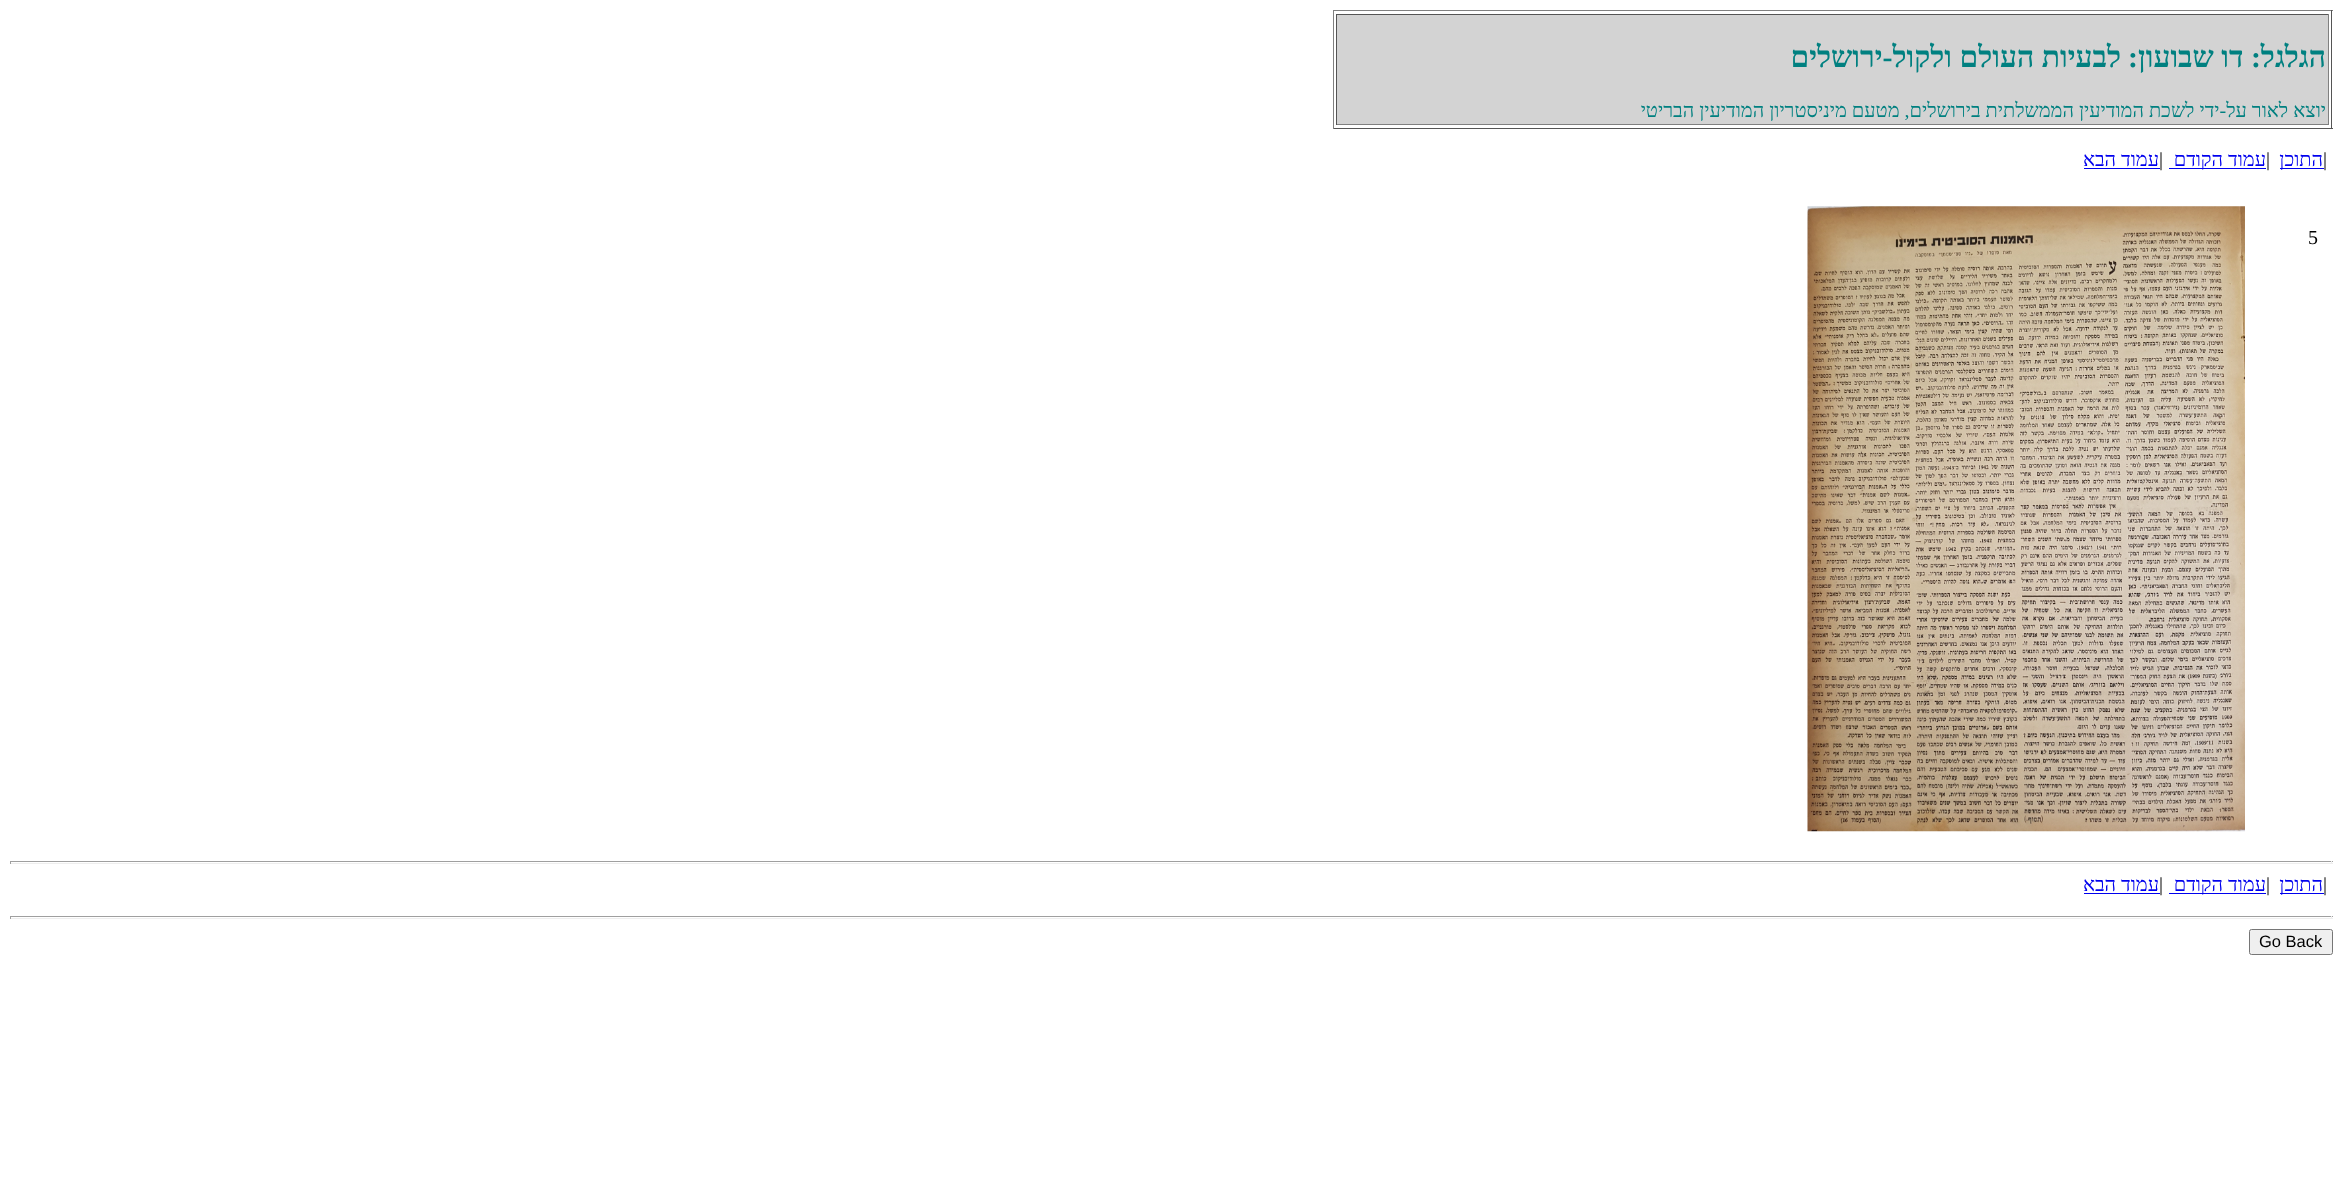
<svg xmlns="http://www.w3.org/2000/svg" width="2342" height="1182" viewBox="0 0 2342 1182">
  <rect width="100%" height="100%" fill="#ffffff"/>
  <rect x="1333" y="10" width="1000" height="1" fill="#808080"/>
  <rect x="2331" y="10" width="1" height="119" fill="#555555"/>
  <rect x="1333" y="128" width="1000" height="1" fill="#555555"/>
  <rect x="1333" y="10" width="1" height="119" fill="#808080"/>
  <rect x="1337" y="15" width="991" height="109" fill="#d3d3d3"/>
  <rect x="1336" y="14" width="993" height="1" fill="#555555"/>
  <rect x="2328" y="14" width="1" height="111" fill="#808080"/>
  <rect x="1336" y="124" width="993" height="1" fill="#808080"/>
  <rect x="1336" y="14" width="1" height="111" fill="#555555"/>
  <text x="2326" y="67" font-family="Liberation Serif" font-size="30" font-weight="bold" direction="rtl" fill="#008080">הגלגל: דו שבועון:</text>
  <text x="2121" y="67" font-family="Liberation Serif" font-size="30" font-weight="bold" direction="rtl" fill="#008080">לבעיות העולם ולקול-ירושלים</text>
  <text x="2326" y="117" font-family="Liberation Serif" font-size="20" direction="rtl" fill="#008080">יוצא לאור על-ידי לשכת המודיעין הממשלתית בירושלים, מטעם מיניסטריון המודיעין הבריטי</text>
  <text x="2323" y="166" font-family="Liberation Serif" font-size="20" fill="#000000">|</text>
  <rect x="2280" y="168" width="44" height="1" fill="#0000ee"/>
  <text x="2323" y="166" font-family="Liberation Serif" font-size="20" direction="rtl" fill="#0000ee">התוכן</text>
  <text x="2266" y="166" font-family="Liberation Serif" font-size="20" fill="#000000">|</text>
  <rect x="2169" y="168" width="97" height="1" fill="#0000ee"/>
  <text x="2266" y="166" font-family="Liberation Serif" font-size="20" direction="rtl" fill="#0000ee">עמוד הקודם</text>
  <text x="2159" y="166" font-family="Liberation Serif" font-size="20" fill="#000000">|</text>
  <text x="2159" y="166" font-family="Liberation Serif" font-size="20" direction="rtl" fill="#0000ee">עמוד הבא</text>
  <rect x="2084" y="168" width="76" height="1" fill="#0000ee"/>
  <text x="2308" y="244" font-family="Liberation Serif" font-size="20" fill="#000000">5</text>
  <image x="1807" y="206" width="438" height="626" href="img1.png"/>
  <rect x="10" y="861" width="2323" height="1" fill="#9f9f9f"/>
  <rect x="2331" y="861" width="1" height="3" fill="#eeeeee"/>
  <rect x="10" y="863" width="2323" height="1" fill="#eeeeee"/>
  <rect x="10" y="861" width="1" height="3" fill="#9f9f9f"/>
  <text x="2323" y="891" font-family="Liberation Serif" font-size="20" fill="#000000">|</text>
  <rect x="2280" y="893" width="44" height="1" fill="#0000ee"/>
  <text x="2323" y="891" font-family="Liberation Serif" font-size="20" direction="rtl" fill="#0000ee">התוכן</text>
  <text x="2266" y="891" font-family="Liberation Serif" font-size="20" fill="#000000">|</text>
  <rect x="2169" y="893" width="97" height="1" fill="#0000ee"/>
  <text x="2266" y="891" font-family="Liberation Serif" font-size="20" direction="rtl" fill="#0000ee">עמוד הקודם</text>
  <text x="2159" y="891" font-family="Liberation Serif" font-size="20" fill="#000000">|</text>
  <text x="2159" y="891" font-family="Liberation Serif" font-size="20" direction="rtl" fill="#0000ee">עמוד הבא</text>
  <rect x="2084" y="893" width="76" height="1" fill="#0000ee"/>
  <rect x="10" y="916" width="2323" height="1" fill="#9f9f9f"/>
  <rect x="2331" y="916" width="1" height="3" fill="#eeeeee"/>
  <rect x="10" y="918" width="2323" height="1" fill="#eeeeee"/>
  <rect x="10" y="916" width="1" height="3" fill="#9f9f9f"/>
  <rect x="2249.5" y="929.5" width="83" height="25" rx="2" fill="#efefef" stroke="#767676"/>
  <text x="2259" y="947" font-family="Liberation Sans" font-size="16.5" fill="#000000">Go Back</text>
</svg>
